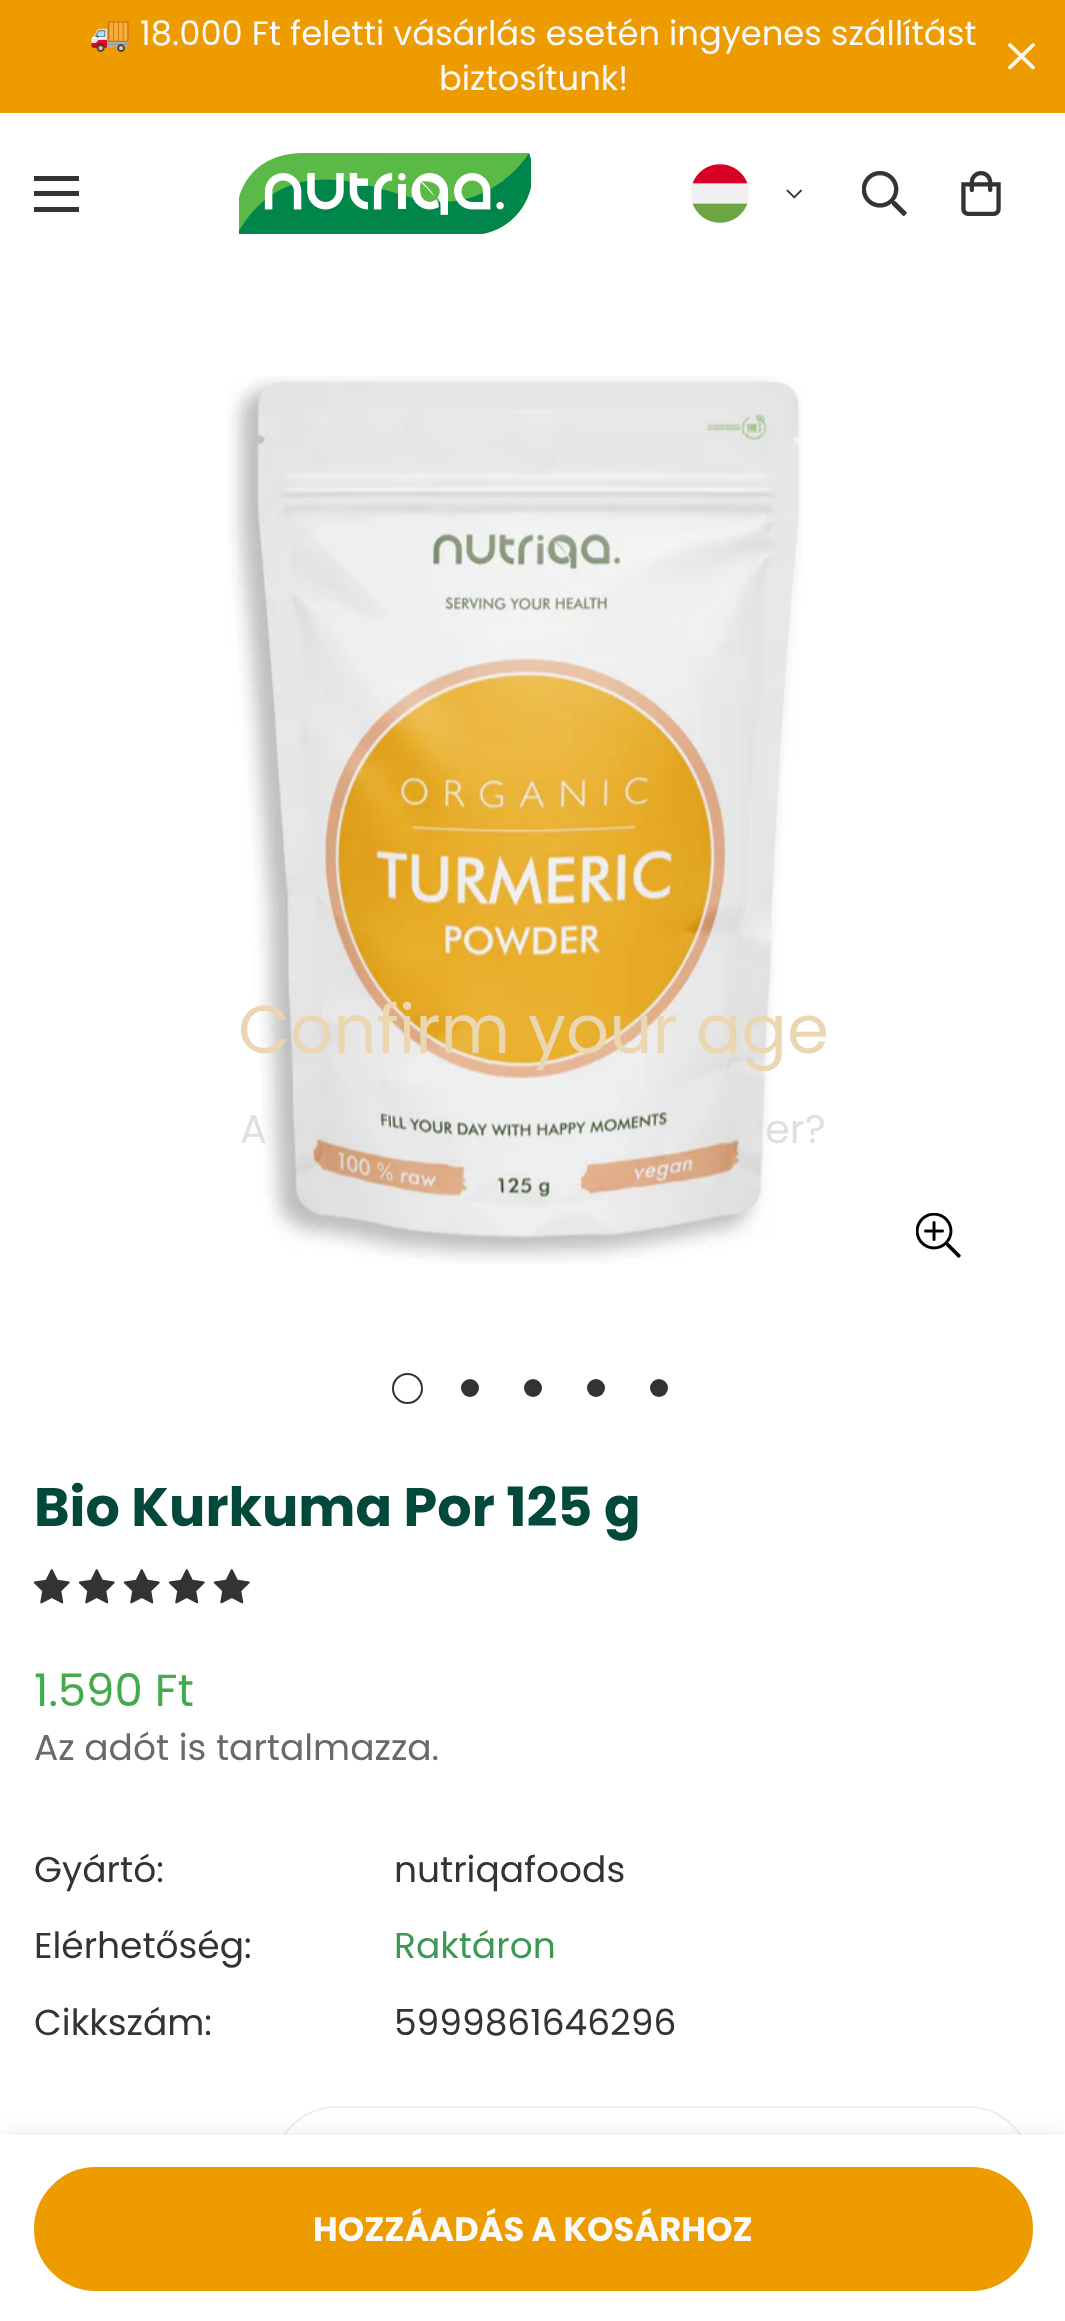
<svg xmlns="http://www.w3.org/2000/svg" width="1065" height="2321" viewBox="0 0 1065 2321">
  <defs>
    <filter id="blur1" x="-50%" y="-200%" width="200%" height="500%"><feGaussianBlur stdDeviation="11"/></filter>
  </defs>
  <rect width="100%" height="100%" fill="#ffffff"/>
  <rect x="0" y="0" width="1065" height="113" fill="#ee9b00"/>
  <text x="89" y="45" font-family="Noto Color Emoji" font-size="33.75" fill="#fafafa">🚚</text>
  <text x="140" y="45" font-family="Poppins" font-size="33.75" fill="#fafafa">18.000 Ft feletti vásárlás esetén ingyenes szállítást</text>
  <text x="439" y="90" font-family="Poppins" font-size="33.75" fill="#fafafa">biztosítunk!</text>
  <path d="M1010 67.5L1033 45M1010 45L1033 67.5" fill="none" stroke="#f8f8f8" stroke-width="3.8" stroke-linecap="round" stroke-linejoin="round"/>
  <rect x="34" y="191" width="45" height="5" fill="#333333"/>
  <rect x="34" y="176" width="45" height="5" fill="#333333"/>
  <rect x="34" y="207" width="45" height="5" fill="#333333"/>
  <image x="239" y="153" width="292" height="81" href="img1.png"/>
  <image x="691" y="164" width="58" height="59" href="img2.png"/>
  <image x="786" y="189" width="16" height="10" href="img3.png"/>
  <image x="862" y="171" width="45" height="45" href="img4.png"/>
  <image x="961" y="171" width="40" height="45" href="img5.png"/>
  <image x="227" y="376" width="575" height="888" href="img6.png"/>
  <text x="238" y="1053" font-family="Poppins" font-size="67.5" fill="#ead7b1">Confirm your age</text>
  <text x="240" y="1143" font-family="Poppins" font-size="40" fill="#dfe0dd">A</text>
  <text x="765" y="1143" font-family="Poppins" font-size="40" fill="#dfe0dd">er?</text>
  <image x="916" y="1213" width="45" height="45" href="img7.png"/>
  <circle cx="407.5" cy="1388.5" r="14.5" fill="none" stroke="#333333" stroke-width="2"/>
  <circle cx="470" cy="1388" r="9" fill="#333333"/>
  <circle cx="533" cy="1388" r="9" fill="#333333"/>
  <circle cx="596" cy="1388" r="9" fill="#333333"/>
  <circle cx="659" cy="1388" r="9" fill="#333333"/>
  <text x="34" y="1526" font-family="Poppins" font-size="54" font-weight="bold" fill="#02493b">Bio Kurkuma Por 125 g</text>
  <image x="33" y="1569" width="37" height="35" href="img8.png"/>
  <image x="78" y="1569" width="37" height="35" href="img8.png"/>
  <image x="123" y="1569" width="37" height="35" href="img8.png"/>
  <image x="168" y="1569" width="37" height="35" href="img8.png"/>
  <image x="213" y="1569" width="37" height="35" href="img8.png"/>
  <text x="34" y="1706" font-family="Poppins" font-size="45" fill="#43ab4b">1.590 Ft</text>
  <text x="34" y="1760" font-family="Poppins" font-size="36" fill="#696969">Az adót is tartalmazza.</text>
  <text x="34" y="1882" font-family="Poppins" font-size="36" fill="#333333">Gyártó:</text>
  <text x="394" y="1882" font-family="Poppins" font-size="36" fill="#333333">nutriqafoods</text>
  <text x="34" y="1958" font-family="Poppins" font-size="36" fill="#333333">Elérhetőség:</text>
  <text x="394" y="1958" font-family="Poppins" font-size="36" fill="#3d9851">Raktáron</text>
  <text x="34" y="2035" font-family="Poppins" font-size="36" fill="#333333">Cikkszám:</text>
  <text x="394" y="2035" font-family="Poppins" font-size="36" fill="#333333">5999861646296</text>
  <rect x="273" y="2107" width="759" height="129" rx="64.5" fill="none" stroke="#eeeeee" stroke-width="2"/>
  <rect x="0" y="2135" width="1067" height="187" fill="#000000" fill-opacity="0.09" filter="url(#blur1)"/>
  <rect x="0" y="2135" width="1065" height="186" fill="#ffffff"/>
  <rect x="35" y="2168" width="997" height="122" rx="61" fill="#ee9b00" stroke="#ee9b00" stroke-width="2"/>
  <text x="313" y="2241" font-family="Poppins" font-size="33.75" font-weight="bold" fill="#fafafa">HOZZÁADÁS A KOSÁRHOZ</text>
</svg>
